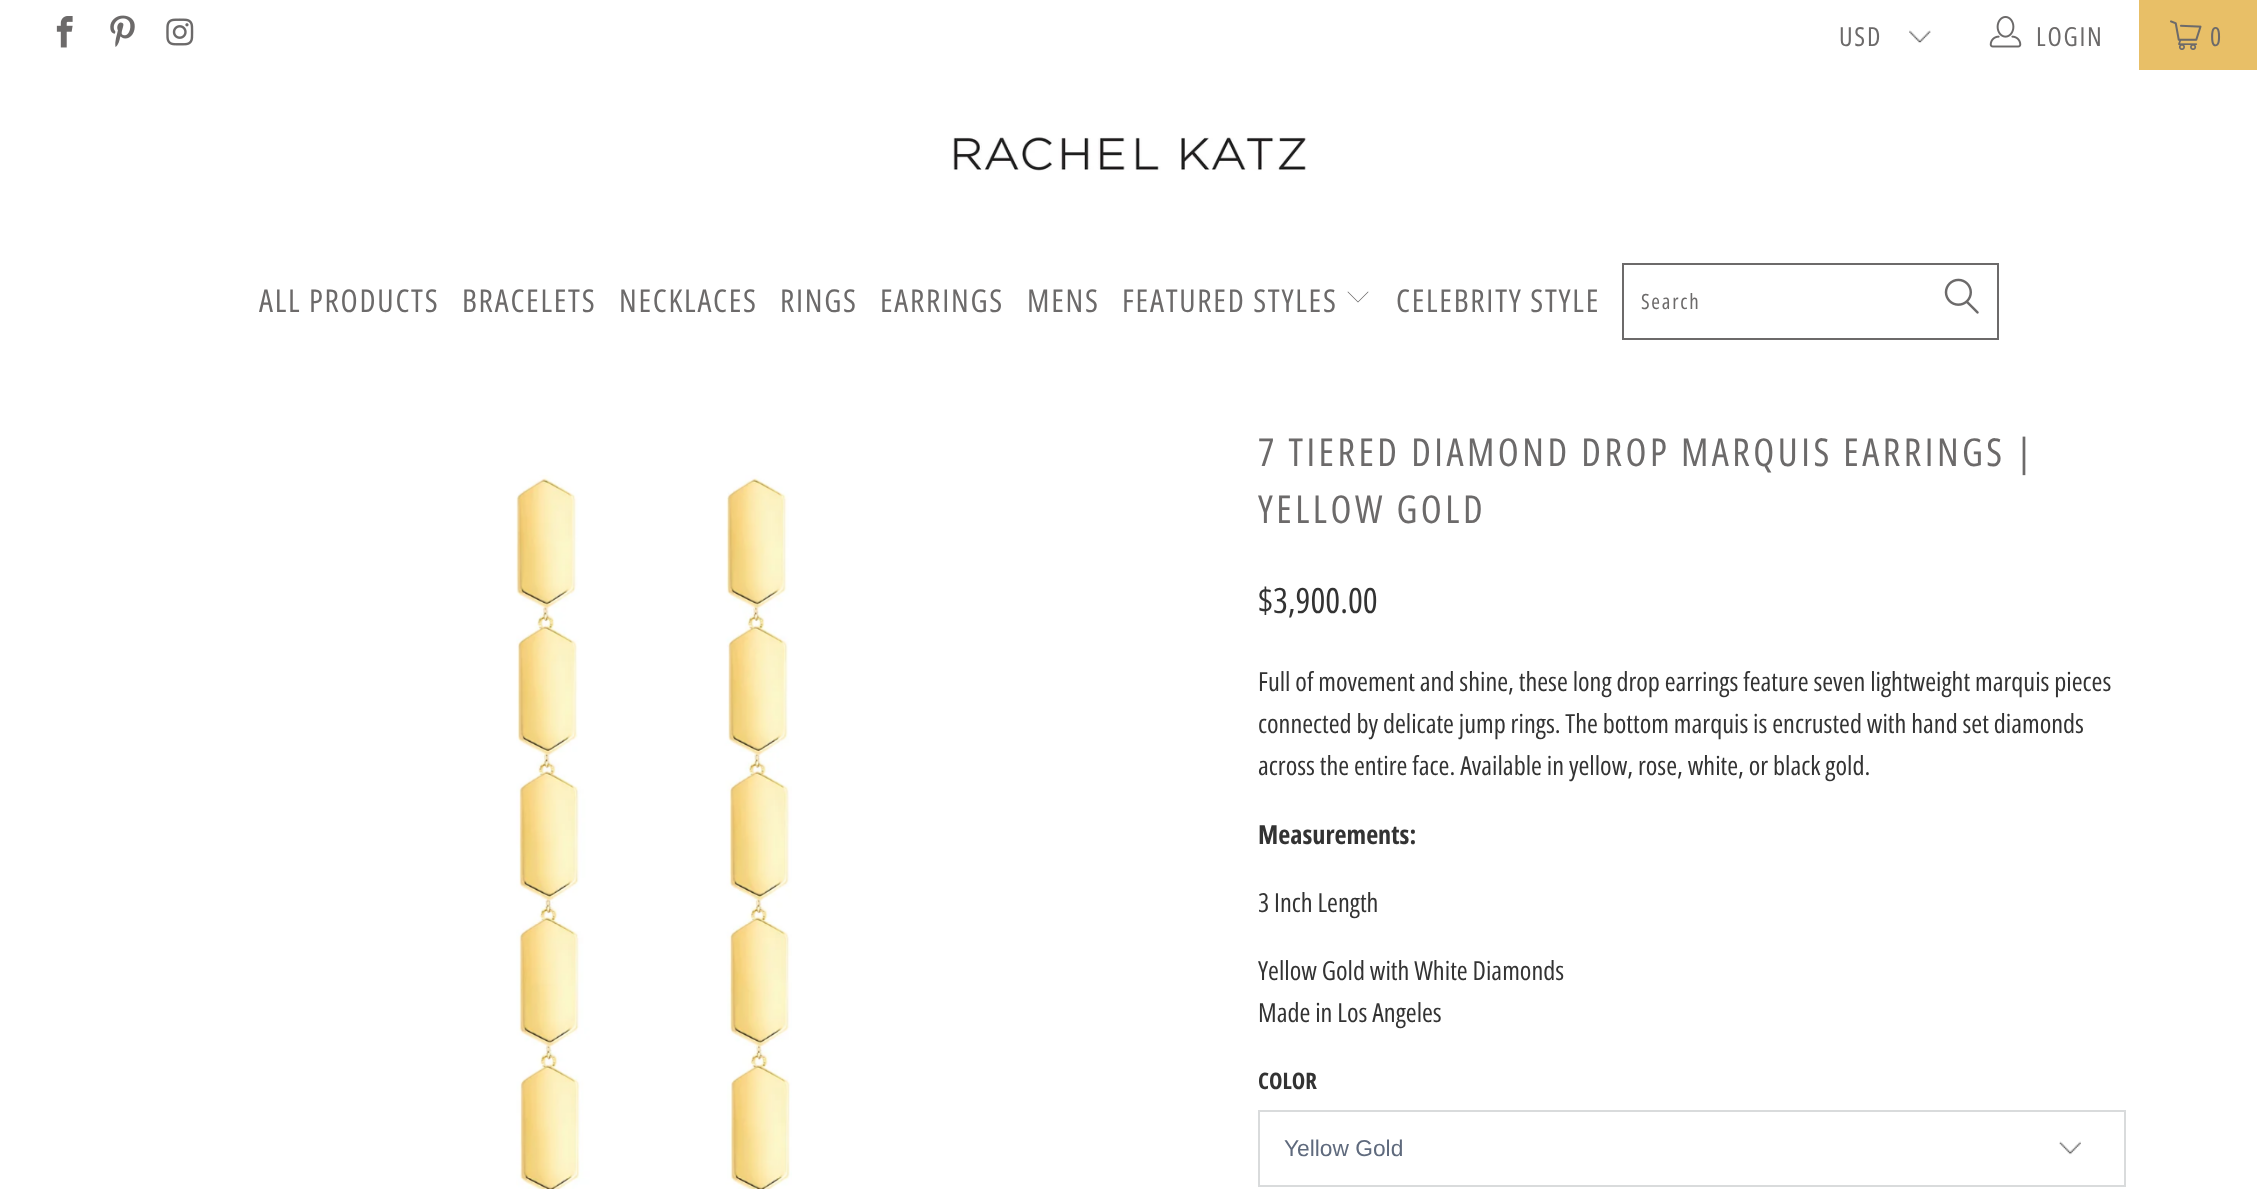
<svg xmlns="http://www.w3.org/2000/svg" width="2257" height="1189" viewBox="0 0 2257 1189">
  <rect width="100%" height="100%" fill="#ffffff"/>
  <image x="56" y="16" width="17" height="32" href="img1.png"/>
  <image x="110" y="15" width="25" height="32" href="img2.png"/>
  <image x="166" y="18" width="28" height="28" href="img3.png"/>
  <image x="1909" y="30" width="22" height="13" href="img4.png"/>
  <text x="1839" y="46" font-family="Open Sans Condensed" font-size="26.25" letter-spacing="1.75" fill="#6c6a6a">USD</text>
  <image x="1989" y="16" width="33" height="32" href="img5.png"/>
  <text x="2036" y="46" font-family="Open Sans Condensed" font-size="26.25" letter-spacing="1.75" fill="#6c6a6a">LOGIN</text>
  <rect x="2139" y="0" width="118" height="70" fill="#e8bf67"/>
  <image x="2170" y="20" width="32" height="30" href="img6.png"/>
  <text x="2210" y="46" font-family="Open Sans Condensed" font-size="26.25" letter-spacing="1.75" fill="#6c6a6a">0</text>
  <image x="953" y="137" width="354" height="34" href="img7.png"/>
  <text x="259" y="312" font-family="Open Sans Condensed" font-size="31.5" letter-spacing="1.75" fill="#6c6a6a">ALL PRODUCTS</text>
  <text x="462" y="312" font-family="Open Sans Condensed" font-size="31.5" letter-spacing="1.75" fill="#6c6a6a">BRACELETS</text>
  <text x="619" y="312" font-family="Open Sans Condensed" font-size="31.5" letter-spacing="1.75" fill="#6c6a6a">NECKLACES</text>
  <text x="780" y="312" font-family="Open Sans Condensed" font-size="31.5" letter-spacing="1.75" fill="#6c6a6a">RINGS</text>
  <text x="880" y="312" font-family="Open Sans Condensed" font-size="31.5" letter-spacing="1.75" fill="#6c6a6a">EARRINGS</text>
  <text x="1027" y="312" font-family="Open Sans Condensed" font-size="31.5" letter-spacing="1.75" fill="#6c6a6a">MENS</text>
  <text x="1122" y="312" font-family="Open Sans Condensed" font-size="31.5" letter-spacing="1.75" fill="#6c6a6a">FEATURED STYLES</text>
  <path d="M1358 302.5L1347.5 292L1348 291.5L1358 301.5L1368 291.5L1368.5 292Z" fill="#6c6a6a"/>
  <text x="1396" y="312" font-family="Open Sans Condensed" font-size="31.5" letter-spacing="1.75" fill="#6c6a6a">CELEBRITY STYLE</text>
  <rect x="1623" y="264" width="375" height="75" fill="none" stroke="#6c6a6a" stroke-width="2"/>
  <text x="1641" y="309" font-family="Open Sans Condensed" font-size="21" letter-spacing="1.75" fill="#6c6a6a">Search</text>
  <image x="1944" y="278" width="35" height="36" href="img8.png"/>
  <image x="516" y="475" width="276" height="714" href="img9.png"/>
  <text x="1258" y="466" font-family="Open Sans Condensed" font-size="38.5" letter-spacing="3.5" fill="#6c6a6a">7 TIERED DIAMOND DROP MARQUIS EARRINGS |</text>
  <text x="1258" y="523" font-family="Open Sans Condensed" font-size="38.5" letter-spacing="3.5" fill="#6c6a6a">YELLOW GOLD</text>
  <text x="1258" y="613" font-family="Open Sans Condensed" font-size="35" fill="#333333">$3,900.00</text>
  <text x="1258" y="691" font-family="Open Sans Condensed" font-size="26.25" fill="#333333">Full of movement and shine, these long drop earrings feature seven lightweight marquis pieces</text>
  <text x="1258" y="733" font-family="Open Sans Condensed" font-size="26.25" fill="#333333">connected by delicate jump rings. The bottom marquis is encrusted with hand set diamonds</text>
  <text x="1258" y="775" font-family="Open Sans Condensed" font-size="26.25" fill="#333333">across the entire face. Available in yellow, rose, white, or black gold.</text>
  <text x="1258" y="844" font-family="Open Sans Condensed" font-size="26.25" font-weight="bold" fill="#333333">Measurements:</text>
  <text x="1258" y="912" font-family="Open Sans Condensed" font-size="26.25" fill="#333333">3 Inch Length</text>
  <text x="1258" y="980" font-family="Open Sans Condensed" font-size="26.25" fill="#333333">Yellow Gold with White Diamonds</text>
  <text x="1258" y="1022" font-family="Open Sans Condensed" font-size="26.25" fill="#333333">Made in Los Angeles</text>
  <text x="1258" y="1089" font-family="Open Sans Condensed" font-size="22.75" font-weight="bold" fill="#333333">COLOR</text>
  <image x="2059" y="1141" width="22" height="14" href="img10.png"/>
  <rect x="1259" y="1111" width="866" height="75" fill="none" stroke="#d9dbdc" stroke-width="2"/>
  <text x="1284" y="1156" font-family="Liberation Sans" font-size="22.75" fill="#5f6a7d">Yellow Gold</text>
</svg>
